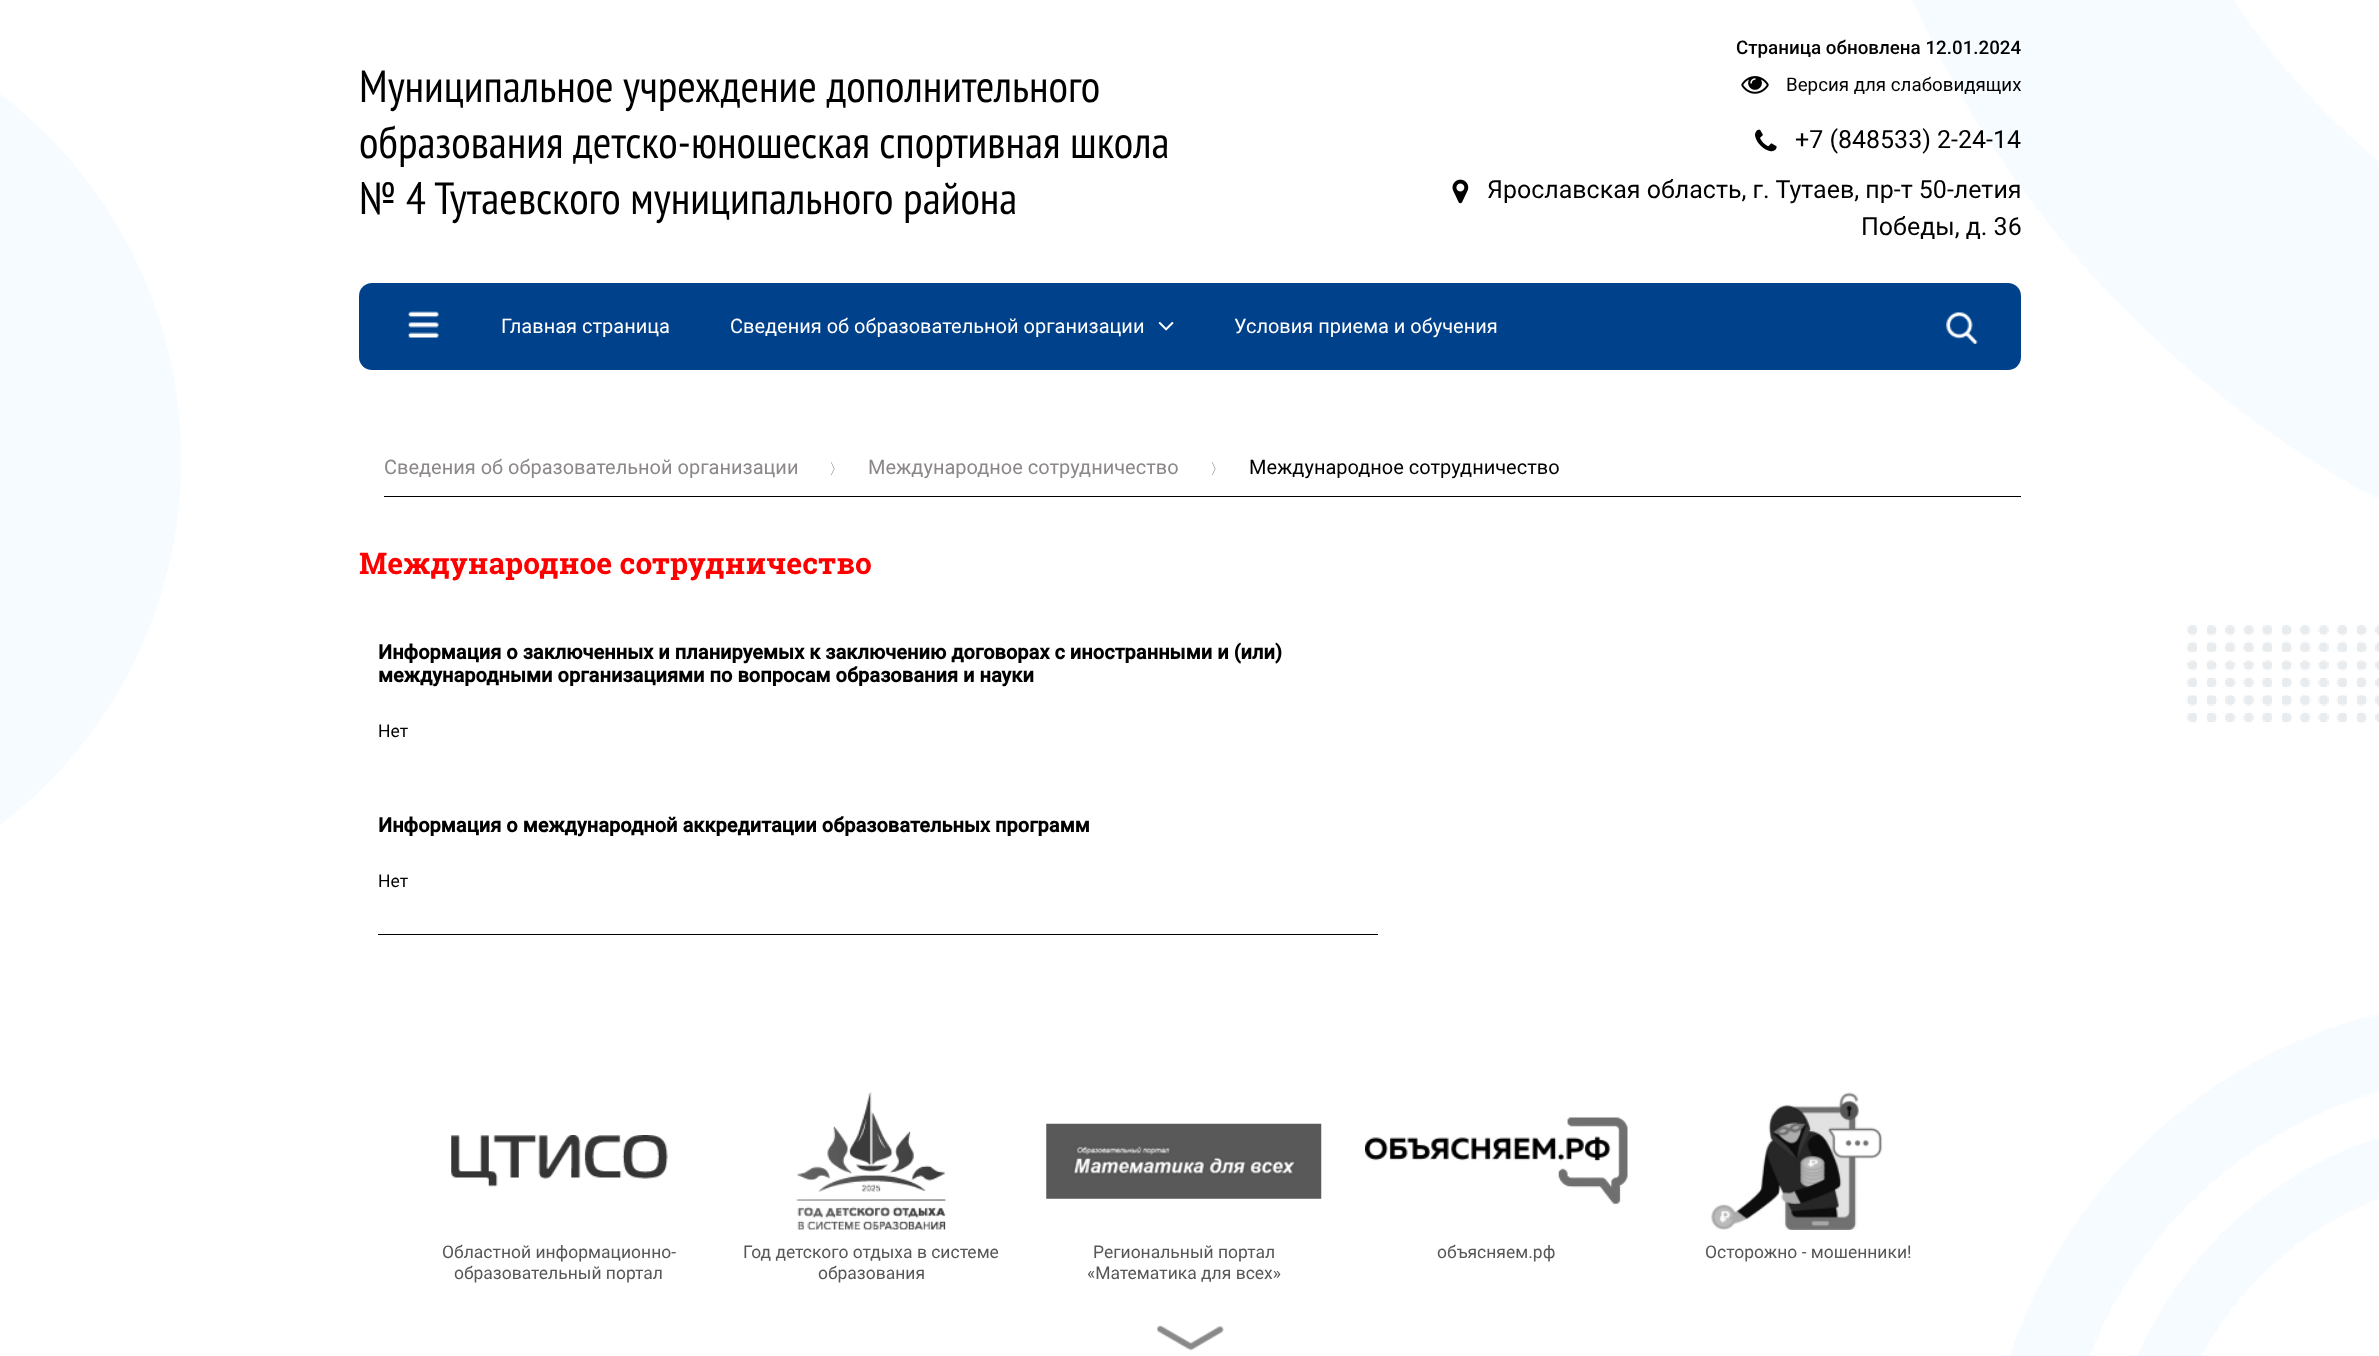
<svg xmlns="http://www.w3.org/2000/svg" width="2379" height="1356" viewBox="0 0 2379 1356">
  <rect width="100%" height="100%" fill="#ffffff"/>
  <image x="0" y="0" width="2379" height="1356" href="img1.png"/>
  <text x="359" y="102" font-family="PT Sans Narrow" font-size="45" fill="#000000">Муниципальное учреждение дополнительного</text>
  <text x="359" y="158" font-family="PT Sans Narrow" font-size="45" fill="#000000">образования детско-юношеская спортивная школа</text>
  <text x="359" y="214" font-family="PT Sans Narrow" font-size="45" fill="#000000">№ 4 Тутаевского муниципального района</text>
  <text x="1736" y="54" font-family="Roboto" font-size="18.75" font-weight="500" fill="#000000">Страница обновлена 12.01.2024</text>
  <image x="1741" y="76" width="28" height="18" href="img2.png"/>
  <text x="1786" y="91" font-family="Roboto" font-size="18.75" fill="#000000">Версия для слабовидящих</text>
  <image x="1755" y="129" width="22" height="23" href="img3.png"/>
  <text x="1795" y="148" font-family="Roboto" font-size="25" fill="#000000">+7 (848533) 2-24-14</text>
  <image x="1452" y="179" width="17" height="25" href="img4.png"/>
  <text x="1487" y="198" font-family="Roboto" font-size="25" fill="#000000">Ярославская область, г. Тутаев, пр-т 50-летия</text>
  <text x="1861" y="235" font-family="Roboto" font-size="25" fill="#000000">Победы, д. 36</text>
  <rect x="359" y="283" width="1662" height="87" rx="13" fill="#00418b"/>
  <image x="408" y="311" width="31" height="27" href="img5.png"/>
  <text x="501" y="333" font-family="Roboto" font-size="20" fill="#ffffff">Главная страница</text>
  <text x="730" y="333" font-family="Roboto" font-size="20" fill="#ffffff">Сведения об образовательной организации</text>
  <image x="1158" y="321" width="16" height="10" href="img6.png"/>
  <text x="1234" y="333" font-family="Roboto" font-size="20" fill="#ffffff">Условия приема и обучения</text>
  <image x="1946" y="312" width="32" height="32" href="img7.png"/>
  <rect x="384" y="496" width="1637" height="1" fill="#000000"/>
  <text x="384" y="474" font-family="Roboto" font-size="20" fill="#8c8888">Сведения об образовательной организации</text>
  <text x="829" y="474" font-family="WenQuanYi Zen Hei" font-size="15" font-weight="500" fill="#8c8888">〉</text>
  <text x="868" y="474" font-family="Roboto" font-size="20" fill="#8c8888">Международное сотрудничество</text>
  <text x="1210" y="474" font-family="WenQuanYi Zen Hei" font-size="15" font-weight="500" fill="#8c8888">〉</text>
  <text x="1249" y="474" font-family="Roboto" font-size="20" fill="#000000">Международное сотрудничество</text>
  <text x="359" y="574" font-family="Roboto Slab" font-size="30" font-weight="bold" fill="#ff0000">Международное сотрудничество</text>
  <rect x="378" y="934" width="1000" height="1" fill="#000000"/>
  <text x="378" y="659" font-family="Roboto" font-size="20" font-weight="bold" fill="#000000">Информация о заключенных и планируемых к заключению договорах с иностранными и (или)</text>
  <text x="378" y="682" font-family="Roboto" font-size="20" font-weight="bold" fill="#000000">международными организациями по вопросам образования и науки</text>
  <text x="378" y="737" font-family="Roboto" font-size="17.5" fill="#000000">Нет</text>
  <text x="378" y="832" font-family="Roboto" font-size="20" font-weight="bold" fill="#000000">Информация о международной аккредитации образовательных программ</text>
  <text x="378" y="887" font-family="Roboto" font-size="17.5" fill="#000000">Нет</text>
  <image x="451" y="1135" width="217" height="52" href="img8.png"/>
  <text x="442" y="1258" font-family="Roboto" font-size="17.5" fill="#575757">Областной информационно-</text>
  <text x="454" y="1279" font-family="Roboto" font-size="17.5" fill="#575757">образовательный портал</text>
  <image x="796" y="1092" width="151" height="138" href="img9.png"/>
  <text x="743" y="1258" font-family="Roboto" font-size="17.5" fill="#575757">Год детского отдыха в системе</text>
  <text x="818" y="1279" font-family="Roboto" font-size="17.5" fill="#575757">образования</text>
  <image x="1046" y="1123" width="276" height="76" href="img10.png"/>
  <text x="1093" y="1258" font-family="Roboto" font-size="17.5" fill="#575757">Региональный портал</text>
  <text x="1087" y="1279" font-family="Roboto" font-size="17.5" fill="#575757">«Математика для всех»</text>
  <image x="1365" y="1117" width="263" height="87" href="img11.png"/>
  <text x="1437" y="1258" font-family="Roboto" font-size="17.5" fill="#575757">объясняем.рф</text>
  <image x="1711" y="1092" width="172" height="138" href="img12.png"/>
  <text x="1705" y="1258" font-family="Roboto" font-size="17.5" fill="#575757">Осторожно - мошенники!</text>
  <image x="1156" y="1325" width="68" height="26" href="img13.png"/>
</svg>
